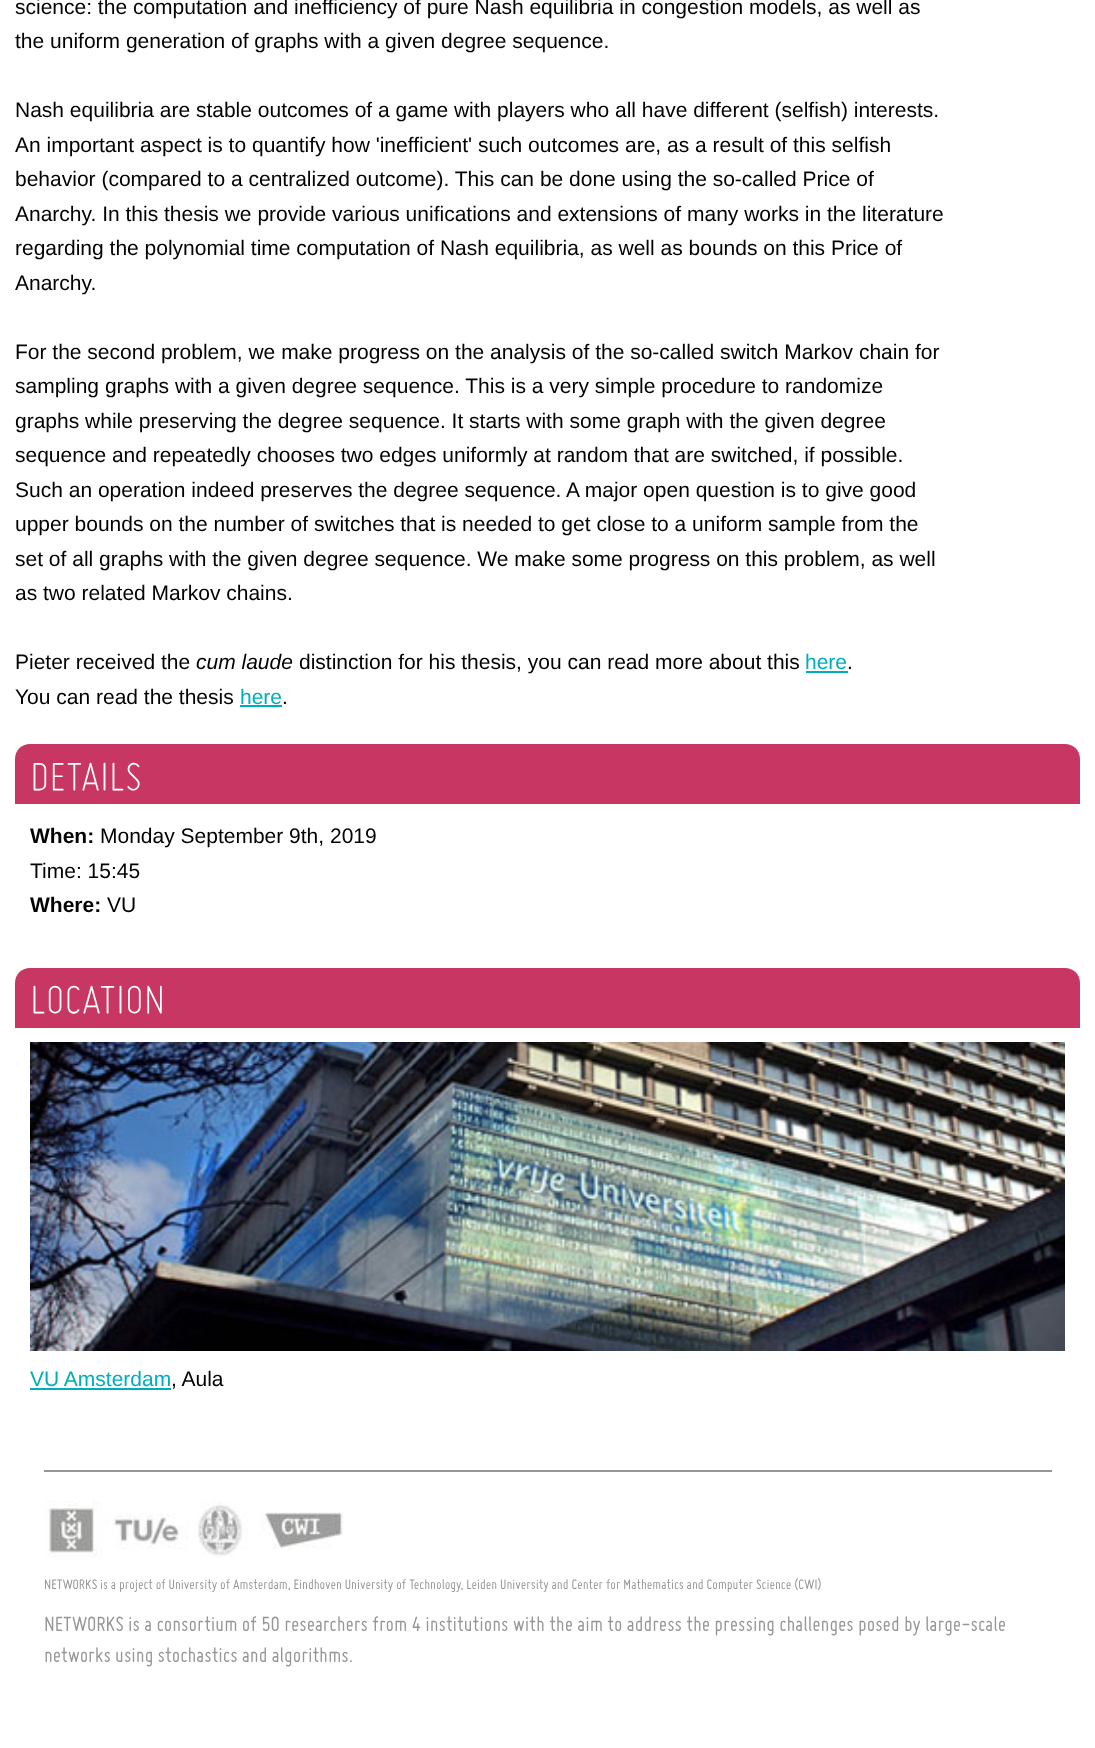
<svg xmlns="http://www.w3.org/2000/svg" width="1095" height="1748" viewBox="0 0 1095 1748">
  <rect width="100%" height="100%" fill="#ffffff"/>
  <text x="15" y="14" font-family="Liberation Sans" font-size="21" fill="#000000">science: the computation and inefficiency of pure Nash equilibria in congestion models, as well as</text>
  <text x="15" y="48" font-family="Liberation Sans" font-size="21" fill="#000000">the uniform generation of graphs with a given degree sequence.</text>
  <text x="15" y="117" font-family="Liberation Sans" font-size="21" fill="#000000">Nash equilibria are stable outcomes of a game with players who all have different (selfish) interests.</text>
  <text x="15" y="152" font-family="Liberation Sans" font-size="21" fill="#000000">An important aspect is to quantify how 'inefficient' such outcomes are, as a result of this selfish</text>
  <text x="15" y="186" font-family="Liberation Sans" font-size="21" fill="#000000">behavior (compared to a centralized outcome). This can be done using the so-called Price of</text>
  <text x="15" y="221" font-family="Liberation Sans" font-size="21" fill="#000000">Anarchy. In this thesis we provide various unifications and extensions of many works in the literature</text>
  <text x="15" y="255" font-family="Liberation Sans" font-size="21" fill="#000000">regarding the polynomial time computation of Nash equilibria, as well as bounds on this Price of</text>
  <text x="15" y="290" font-family="Liberation Sans" font-size="21" fill="#000000">Anarchy.</text>
  <text x="15" y="359" font-family="Liberation Sans" font-size="21" fill="#000000">For the second problem, we make progress on the analysis of the so-called switch Markov chain for</text>
  <text x="15" y="393" font-family="Liberation Sans" font-size="21" fill="#000000">sampling graphs with a given degree sequence. This is a very simple procedure to randomize</text>
  <text x="15" y="428" font-family="Liberation Sans" font-size="21" fill="#000000">graphs while preserving the degree sequence. It starts with some graph with the given degree</text>
  <text x="15" y="462" font-family="Liberation Sans" font-size="21" fill="#000000">sequence and repeatedly chooses two edges uniformly at random that are switched, if possible.</text>
  <text x="15" y="497" font-family="Liberation Sans" font-size="21" fill="#000000">Such an operation indeed preserves the degree sequence. A major open question is to give good</text>
  <text x="15" y="531" font-family="Liberation Sans" font-size="21" fill="#000000">upper bounds on the number of switches that is needed to get close to a uniform sample from the</text>
  <text x="15" y="566" font-family="Liberation Sans" font-size="21" fill="#000000">set of all graphs with the given degree sequence. We make some progress on this problem, as well</text>
  <text x="15" y="600" font-family="Liberation Sans" font-size="21" fill="#000000">as two related Markov chains.</text>
  <text x="15" y="669" font-family="Liberation Sans" font-size="21" fill="#000000">Pieter received the</text>
  <text x="196" y="669" font-family="Liberation Sans" font-size="21" font-style="italic" fill="#000000">cum laude</text>
  <text x="299" y="669" font-family="Liberation Sans" font-size="21" fill="#000000">distinction for his thesis, you can read more about this</text>
  <text x="805" y="669" font-family="Liberation Sans" font-size="21" fill="#00adba">here</text>
  <rect x="806" y="671" width="42" height="2" fill="#00adba"/>
  <text x="847" y="669" font-family="Liberation Sans" font-size="21" fill="#000000">.</text>
  <text x="15" y="704" font-family="Liberation Sans" font-size="21" fill="#000000">You can read the thesis</text>
  <text x="240" y="704" font-family="Liberation Sans" font-size="21" fill="#00adba">here</text>
  <rect x="240" y="705" width="42" height="2" fill="#00adba"/>
  <text x="282" y="704" font-family="Liberation Sans" font-size="21" fill="#000000">.</text>
  <path d="M30 744H1065C1073.5 744 1080 750.5 1080 759V804H15V759C15 750.5 21.5 744 30 744Z" fill="#c83663"/>
  <text x="30" y="791" font-family="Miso" font-size="45" font-weight="300" font-style="italic" fill="#ffffff">DETAILS</text>
  <text x="30" y="843" font-family="Liberation Sans" font-size="21" font-weight="bold" fill="#000000">When:</text>
  <text x="100" y="843" font-family="Liberation Sans" font-size="21" fill="#000000">Monday September 9th, 2019</text>
  <text x="30" y="878" font-family="Liberation Sans" font-size="21" fill="#000000">Time: 15:45</text>
  <text x="30" y="912" font-family="Liberation Sans" font-size="21" font-weight="bold" fill="#000000">Where:</text>
  <text x="107" y="912" font-family="Liberation Sans" font-size="21" fill="#000000">VU</text>
  <path d="M30 968H1065C1073.5 968 1080 974.5 1080 983V1028H15V983C15 974.5 21.5 968 30 968Z" fill="#c83663"/>
  <text x="30" y="1014" font-family="Miso" font-size="45" font-weight="300" font-style="italic" fill="#ffffff">LOCATION</text>
  <image x="30" y="1042" width="1035" height="309" href="img1.png"/>
  <text x="30" y="1386" font-family="Liberation Sans" font-size="21" fill="#00adba">VU Amsterdam</text>
  <rect x="30" y="1388" width="141" height="2" fill="#00adba"/>
  <text x="171" y="1386" font-family="Liberation Sans" font-size="21" fill="#000000">, Aula</text>
  <rect x="44" y="1470" width="1008" height="2" fill="#969696"/>
  <image x="44" y="1501" width="299" height="57" href="img2.png"/>
  <text x="44" y="1589" font-family="Miso" font-size="15" font-style="italic" fill="#969696">NETWORKS is a project of University of Amsterdam, Eindhoven University of Technology, Leiden University and Center for Mathematics and Computer Science (CWI)</text>
  <text x="44" y="1631" font-family="Miso" font-size="22.5" font-style="italic" fill="#969696">NETWORKS is a consortium of 50 researchers from 4 institutions with the aim to address the pressing challenges posed by large-scale</text>
  <text x="44" y="1662" font-family="Miso" font-size="22.5" font-style="italic" fill="#969696">networks using stochastics and algorithms.</text>
</svg>
